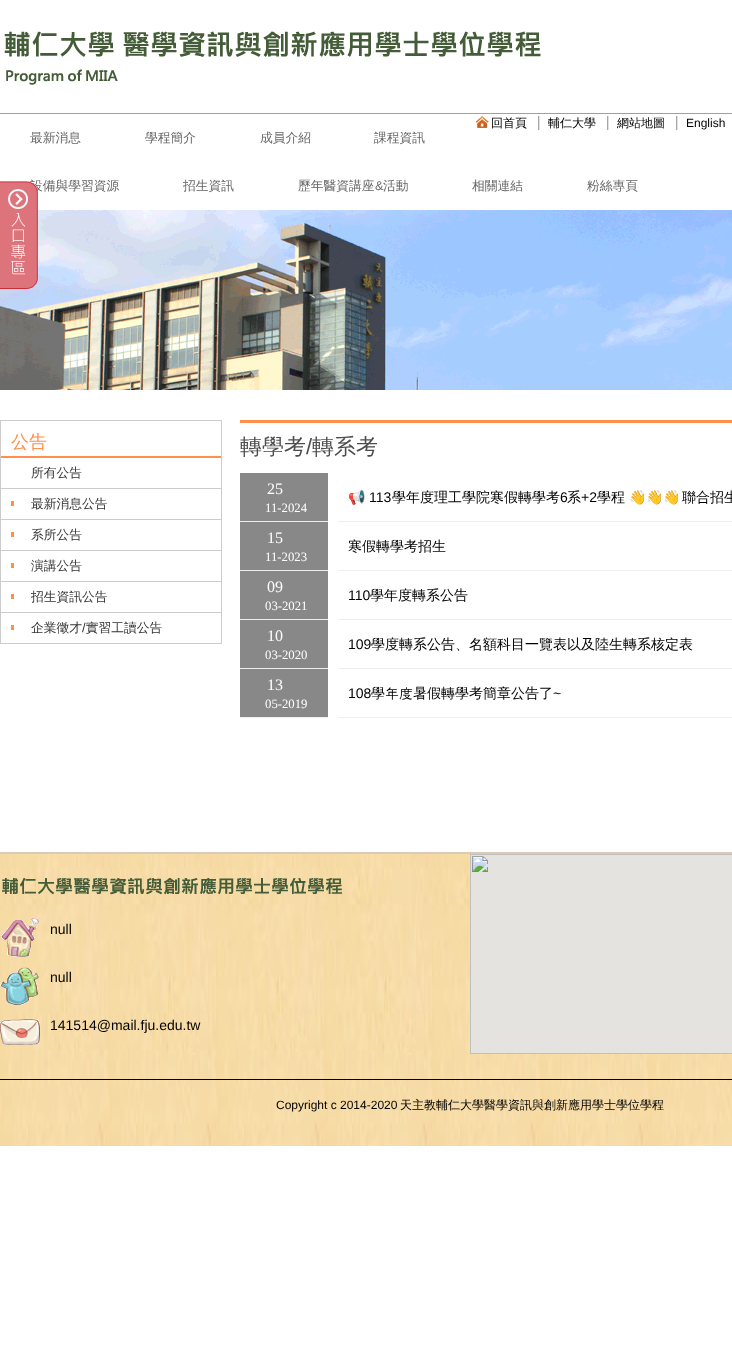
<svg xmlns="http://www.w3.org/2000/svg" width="732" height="1354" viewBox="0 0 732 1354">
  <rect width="100%" height="100%" fill="#ffffff"/>
  <image x="4" y="31" width="537" height="54" href="img1.png"/>
  <image x="476" y="116" width="13" height="12" href="img2.png"/>
  <text x="491" y="127" font-family="WenQuanYi Zen Hei" font-size="12" font-weight="500" fill="#000000">回首頁</text>
  <image x="538" y="116" width="2" height="14" href="img3.png"/>
  <text x="548" y="127" font-family="WenQuanYi Zen Hei" font-size="12" font-weight="500" fill="#000000">輔仁大學</text>
  <image x="607" y="116" width="2" height="14" href="img3.png"/>
  <text x="617" y="127" font-family="WenQuanYi Zen Hei" font-size="12" font-weight="500" fill="#000000">網站地圖</text>
  <image x="676" y="116" width="2" height="14" href="img3.png"/>
  <text x="686" y="127" font-family="Liberation Sans" font-size="12" fill="#000000">English</text>
  <rect x="0" y="113" width="732" height="1" fill="#ff8f00"/>
  <text x="30" y="142" font-family="WenQuanYi Zen Hei" font-size="12.75" font-weight="500" fill="#666666">最新消息</text>
  <text x="145" y="142" font-family="WenQuanYi Zen Hei" font-size="12.75" font-weight="500" fill="#666666">學程簡介</text>
  <text x="260" y="142" font-family="WenQuanYi Zen Hei" font-size="12.75" font-weight="500" fill="#666666">成員介紹</text>
  <text x="374" y="142" font-family="WenQuanYi Zen Hei" font-size="12.75" font-weight="500" fill="#666666">課程資訊</text>
  <text x="30" y="190" font-family="WenQuanYi Zen Hei" font-size="12.75" font-weight="500" fill="#666666">設備與學習資源</text>
  <text x="183" y="190" font-family="WenQuanYi Zen Hei" font-size="12.75" font-weight="500" fill="#666666">招生資訊</text>
  <text x="298" y="190" font-family="WenQuanYi Zen Hei" font-size="12.75" font-weight="500" fill="#666666">歷年醫資講座</text>
  <text x="375" y="190" font-family="Liberation Sans" font-size="12.75" fill="#666666">&amp;</text>
  <text x="383" y="190" font-family="WenQuanYi Zen Hei" font-size="12.75" font-weight="500" fill="#666666">活動</text>
  <text x="472" y="190" font-family="WenQuanYi Zen Hei" font-size="12.75" font-weight="500" fill="#666666">相關連結</text>
  <text x="587" y="190" font-family="WenQuanYi Zen Hei" font-size="12.75" font-weight="500" fill="#666666">粉絲專頁</text>
  <image x="0" y="210" width="732" height="180" href="img5.png"/>
  <image x="0" y="181" width="38" height="108" href="img4.png"/>
  <rect x="0.5" y="420.5" width="221" height="223" fill="none" stroke="#cccccc"/>
  <rect x="1" y="456" width="220" height="2" fill="#ff8f4a"/>
  <text x="11" y="448" font-family="WenQuanYi Zen Hei" font-size="18" font-weight="500" fill="#ff8f4a">公告</text>
  <text x="31" y="477" font-family="WenQuanYi Zen Hei" font-size="12.75" font-weight="500" fill="#333333">所有公告</text>
  <rect x="1" y="488" width="220" height="1" fill="#cccccc"/>
  <text x="31" y="508" font-family="WenQuanYi Zen Hei" font-size="12.75" font-weight="500" fill="#333333">最新消息公告</text>
  <rect x="11" y="501" width="3" height="5" fill="#ff8f4a"/>
  <rect x="1" y="519" width="220" height="1" fill="#cccccc"/>
  <text x="31" y="539" font-family="WenQuanYi Zen Hei" font-size="12.75" font-weight="500" fill="#333333">系所公告</text>
  <rect x="11" y="532" width="3" height="5" fill="#ff8f4a"/>
  <rect x="1" y="550" width="220" height="1" fill="#cccccc"/>
  <text x="31" y="570" font-family="WenQuanYi Zen Hei" font-size="12.75" font-weight="500" fill="#333333">演講公告</text>
  <rect x="11" y="563" width="3" height="5" fill="#ff8f4a"/>
  <rect x="1" y="581" width="220" height="1" fill="#cccccc"/>
  <text x="31" y="601" font-family="WenQuanYi Zen Hei" font-size="12.75" font-weight="500" fill="#333333">招生資訊公告</text>
  <rect x="11" y="594" width="3" height="5" fill="#ff8f4a"/>
  <rect x="1" y="612" width="220" height="1" fill="#cccccc"/>
  <text x="31" y="632" font-family="WenQuanYi Zen Hei" font-size="12.75" font-weight="500" fill="#333333">企業徵才 實習工讀公告</text>
  <rect x="11" y="625" width="3" height="5" fill="#ff8f4a"/>
  <text x="82" y="632" font-family="Liberation Sans" font-size="12.75" fill="#333333">/</text>
  <rect x="240" y="420" width="492" height="3" fill="#ff8f4a"/>
  <text x="240" y="454" font-family="WenQuanYi Zen Hei" font-size="22" font-weight="500" fill="#4d4d4d">轉學考</text>
  <text x="306" y="454" font-family="Liberation Sans" font-size="22" fill="#4d4d4d">/</text>
  <text x="312" y="454" font-family="WenQuanYi Zen Hei" font-size="22" font-weight="500" fill="#4d4d4d">轉系考</text>
  <rect x="240" y="473" width="88" height="48" fill="#888888"/>
  <rect x="240" y="521" width="492" height="1" fill="#eeeeee"/>
  <rect x="328" y="521" width="10" height="1" fill="#ffffff"/>
  <text x="267" y="494" font-family="Liberation Serif" font-size="16" fill="#ffffff">25</text>
  <text x="265" y="512" font-family="Liberation Serif" font-size="12.75" fill="#ffffff">11-2024</text>
  <text x="348" y="502" font-family="Noto Color Emoji" font-size="14" fill="#000000">📢</text>
  <text x="369" y="502" font-family="Liberation Sans" font-size="14" fill="#000000">113</text>
  <text x="392" y="502" font-family="WenQuanYi Zen Hei" font-size="14" font-weight="500" fill="#000000">學年度理工學院寒假轉學考</text>
  <text x="560" y="502" font-family="Liberation Sans" font-size="14" fill="#000000">6</text>
  <text x="567" y="502" font-family="WenQuanYi Zen Hei" font-size="14" font-weight="500" fill="#000000">系</text>
  <text x="581" y="502" font-family="Liberation Sans" font-size="14" fill="#000000">+2</text>
  <text x="597" y="502" font-family="WenQuanYi Zen Hei" font-size="14" font-weight="500" fill="#000000">學程</text>
  <text x="629" y="502" font-family="Noto Color Emoji" font-size="14" fill="#000000">👋👋👋</text>
  <text x="682" y="502" font-family="WenQuanYi Zen Hei" font-size="14" font-weight="500" fill="#000000">聯合招生</text>
  <rect x="240" y="522" width="88" height="48" fill="#888888"/>
  <rect x="240" y="570" width="492" height="1" fill="#eeeeee"/>
  <rect x="328" y="570" width="10" height="1" fill="#ffffff"/>
  <text x="267" y="543" font-family="Liberation Serif" font-size="16" fill="#ffffff">15</text>
  <text x="265" y="561" font-family="Liberation Serif" font-size="12.75" fill="#ffffff">11-2023</text>
  <text x="348" y="551" font-family="WenQuanYi Zen Hei" font-size="14" font-weight="500" fill="#000000">寒假轉學考招生</text>
  <rect x="240" y="571" width="88" height="48" fill="#888888"/>
  <rect x="240" y="619" width="492" height="1" fill="#eeeeee"/>
  <rect x="328" y="619" width="10" height="1" fill="#ffffff"/>
  <text x="267" y="592" font-family="Liberation Serif" font-size="16" fill="#ffffff">09</text>
  <text x="265" y="610" font-family="Liberation Serif" font-size="12.75" fill="#ffffff">03-2021</text>
  <text x="348" y="600" font-family="Liberation Sans" font-size="14" fill="#000000">110</text>
  <text x="370" y="600" font-family="WenQuanYi Zen Hei" font-size="14" font-weight="500" fill="#000000">學年度轉系公告</text>
  <rect x="240" y="620" width="88" height="48" fill="#888888"/>
  <rect x="240" y="668" width="492" height="1" fill="#eeeeee"/>
  <rect x="328" y="668" width="10" height="1" fill="#ffffff"/>
  <text x="267" y="641" font-family="Liberation Serif" font-size="16" fill="#ffffff">10</text>
  <text x="265" y="659" font-family="Liberation Serif" font-size="12.75" fill="#ffffff">03-2020</text>
  <text x="348" y="649" font-family="Liberation Sans" font-size="14" fill="#000000">109</text>
  <text x="371" y="649" font-family="WenQuanYi Zen Hei" font-size="14" font-weight="500" fill="#000000">學度轉系公告、名額科目一覽表以及陸生轉系核定表</text>
  <rect x="240" y="669" width="88" height="48" fill="#888888"/>
  <rect x="240" y="717" width="492" height="1" fill="#eeeeee"/>
  <rect x="328" y="717" width="10" height="1" fill="#ffffff"/>
  <text x="267" y="690" font-family="Liberation Serif" font-size="16" fill="#ffffff">13</text>
  <text x="265" y="708" font-family="Liberation Serif" font-size="12.75" fill="#ffffff">05-2019</text>
  <text x="348" y="698" font-family="Liberation Sans" font-size="14" fill="#000000">108</text>
  <text x="371" y="698" font-family="WenQuanYi Zen Hei" font-size="14" font-weight="500" fill="#000000">學年度暑假轉學考簡章公告了</text>
  <text x="553" y="698" font-family="Liberation Sans" font-size="14" fill="#000000">~</text>
  <image x="0" y="854" width="732" height="292" href="img6.png"/>
  <rect x="0" y="852" width="732" height="2" fill="#dacbb9"/>
  <image x="2" y="877" width="340" height="18" href="img7.png"/>
  <image x="1" y="918" width="38" height="39" href="img8.png"/>
  <text x="50" y="934" font-family="Liberation Sans" font-size="14" fill="#000000">null</text>
  <image x="0" y="967" width="39" height="38" href="img9.png"/>
  <text x="50" y="982" font-family="Liberation Sans" font-size="14" fill="#000000">null</text>
  <image x="0" y="1019" width="40" height="26" href="img10.png"/>
  <text x="50" y="1030" font-family="Liberation Sans" font-size="14" fill="#000000">141514@mail.fju.edu.tw</text>
  <image x="470" y="854" width="262" height="200" href="img11.png"/>
  <rect x="0" y="1079" width="732" height="1" fill="#000000"/>
  <text x="276" y="1109" font-family="Liberation Sans" font-size="12" fill="#000000">Copyright c 2014-2020</text>
  <text x="400" y="1109" font-family="WenQuanYi Zen Hei" font-size="12" font-weight="500" fill="#000000">天主教輔仁大學醫學資訊與創新應用學士學位學程</text>
</svg>
